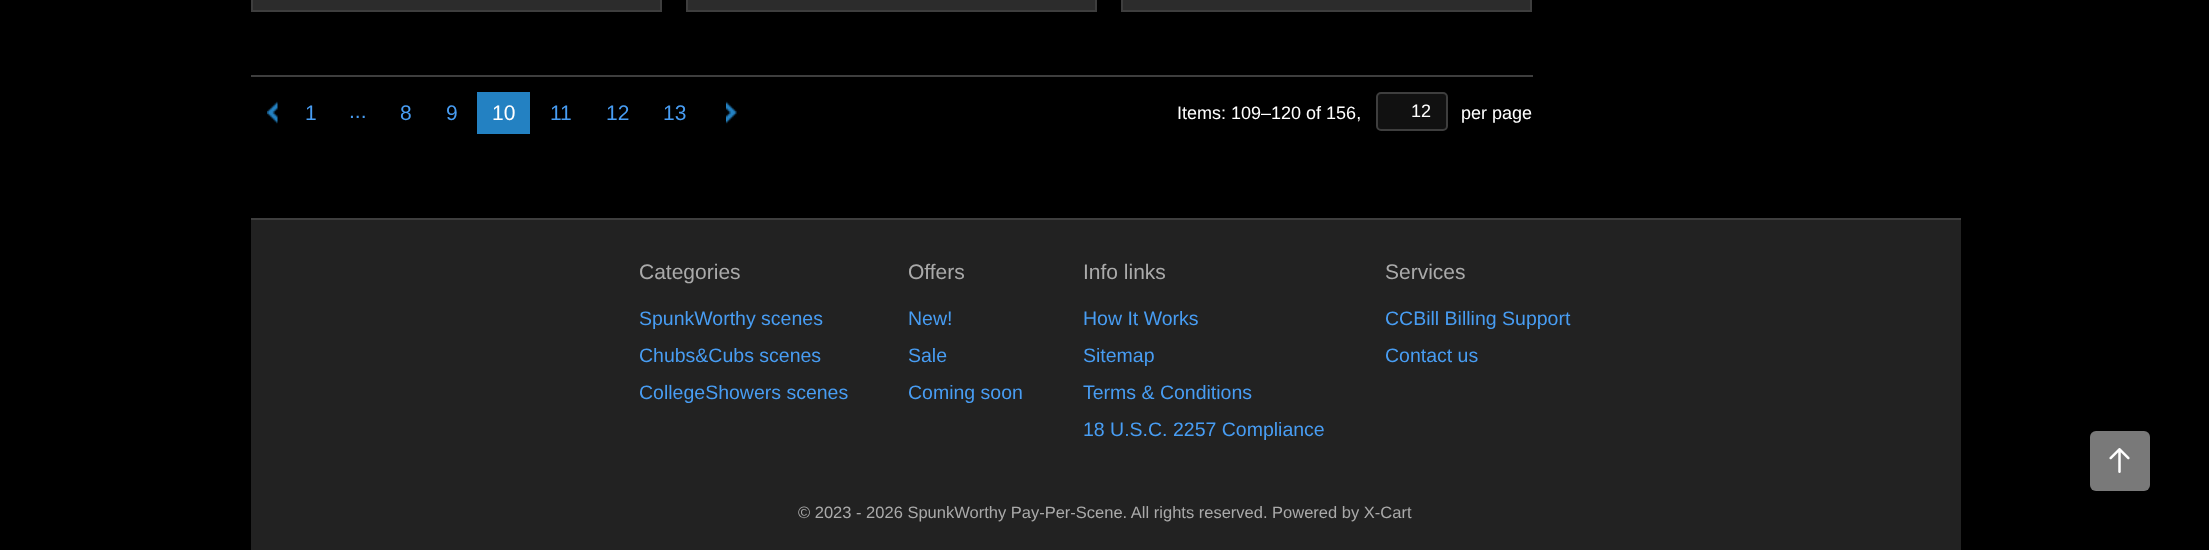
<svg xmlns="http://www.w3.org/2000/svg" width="2209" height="550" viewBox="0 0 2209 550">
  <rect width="100%" height="100%" fill="#000000"/>
  <rect x="252" y="-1" width="409" height="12" fill="#2c2c2c" stroke="#3e3e3e" stroke-width="2"/>
  <rect x="687" y="-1" width="409" height="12" fill="#2c2c2c" stroke="#3e3e3e" stroke-width="2"/>
  <rect x="1122" y="-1" width="409" height="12" fill="#2c2c2c" stroke="#3e3e3e" stroke-width="2"/>
  <rect x="251" y="75" width="1282" height="2" fill="#3e3e3e"/>
  <image x="267" y="101" width="11" height="23" href="img1.png"/>
  <text x="305" y="120" font-family="Liberation Sans" font-size="21" fill="#489df3">1</text>
  <text x="349" y="118" font-family="Liberation Sans" font-size="21" fill="#489df3">...</text>
  <text x="400" y="120" font-family="Liberation Sans" font-size="21" fill="#489df3">8</text>
  <text x="446" y="120" font-family="Liberation Sans" font-size="21" fill="#489df3">9</text>
  <rect x="477" y="92" width="53" height="42" fill="#2381c2"/>
  <text x="492" y="120" font-family="Liberation Sans" font-size="21" fill="#ffffff">10</text>
  <text x="550" y="120" font-family="Liberation Sans" font-size="21" fill="#489df3">11</text>
  <text x="606" y="120" font-family="Liberation Sans" font-size="21" fill="#489df3">12</text>
  <text x="663" y="120" font-family="Liberation Sans" font-size="21" fill="#489df3">13</text>
  <image x="726" y="101" width="11" height="23" href="img2.png"/>
  <text x="1177" y="119" font-family="Liberation Sans" font-size="18" fill="#ffffff">Items: 109–120 of 156,</text>
  <rect x="1377" y="93" width="70" height="37" rx="4" fill="#111111" stroke="#3e3e3e" stroke-width="2"/>
  <text x="1411" y="117" font-family="Liberation Sans" font-size="18" fill="#ffffff">12</text>
  <text x="1461" y="119" font-family="Liberation Sans" font-size="18" fill="#ffffff">per page</text>
  <rect x="2090" y="431" width="60" height="60" rx="6" fill="#797979"/>
  <image x="2109" y="448" width="21" height="25" href="img3.png"/>
  <rect x="251" y="220" width="1710" height="330" fill="#222222"/>
  <rect x="251" y="218" width="1710" height="2" fill="#3e3e3e"/>
  <text x="639" y="279" font-family="Liberation Sans" font-size="21" fill="#aaaaaa">Categories</text>
  <text x="639" y="325" font-family="Liberation Sans" font-size="19.5" fill="#489df3">SpunkWorthy scenes</text>
  <text x="639" y="362" font-family="Liberation Sans" font-size="19.5" fill="#489df3">Chubs&amp;Cubs scenes</text>
  <text x="639" y="399" font-family="Liberation Sans" font-size="19.5" fill="#489df3">CollegeShowers scenes</text>
  <text x="908" y="279" font-family="Liberation Sans" font-size="21" fill="#aaaaaa">Offers</text>
  <text x="908" y="325" font-family="Liberation Sans" font-size="19.5" fill="#489df3">New!</text>
  <text x="908" y="362" font-family="Liberation Sans" font-size="19.5" fill="#489df3">Sale</text>
  <text x="908" y="399" font-family="Liberation Sans" font-size="19.5" fill="#489df3">Coming soon</text>
  <text x="1083" y="279" font-family="Liberation Sans" font-size="21" fill="#aaaaaa">Info links</text>
  <text x="1083" y="325" font-family="Liberation Sans" font-size="19.5" fill="#489df3">How It Works</text>
  <text x="1083" y="362" font-family="Liberation Sans" font-size="19.5" fill="#489df3">Sitemap</text>
  <text x="1083" y="399" font-family="Liberation Sans" font-size="19.5" fill="#489df3">Terms &amp; Conditions</text>
  <text x="1083" y="436" font-family="Liberation Sans" font-size="19.5" fill="#489df3">18 U.S.C. 2257 Compliance</text>
  <text x="1385" y="279" font-family="Liberation Sans" font-size="21" fill="#aaaaaa">Services</text>
  <text x="1385" y="325" font-family="Liberation Sans" font-size="19.5" fill="#489df3">CCBill Billing Support</text>
  <text x="1385" y="362" font-family="Liberation Sans" font-size="19.5" fill="#489df3">Contact us</text>
  <text x="798" y="518" font-family="Liberation Sans" font-size="16.5" fill="#aaaaaa">© 2023 - 2026 SpunkWorthy Pay-Per-Scene. All rights reserved. Powered by X-Cart</text>
</svg>
